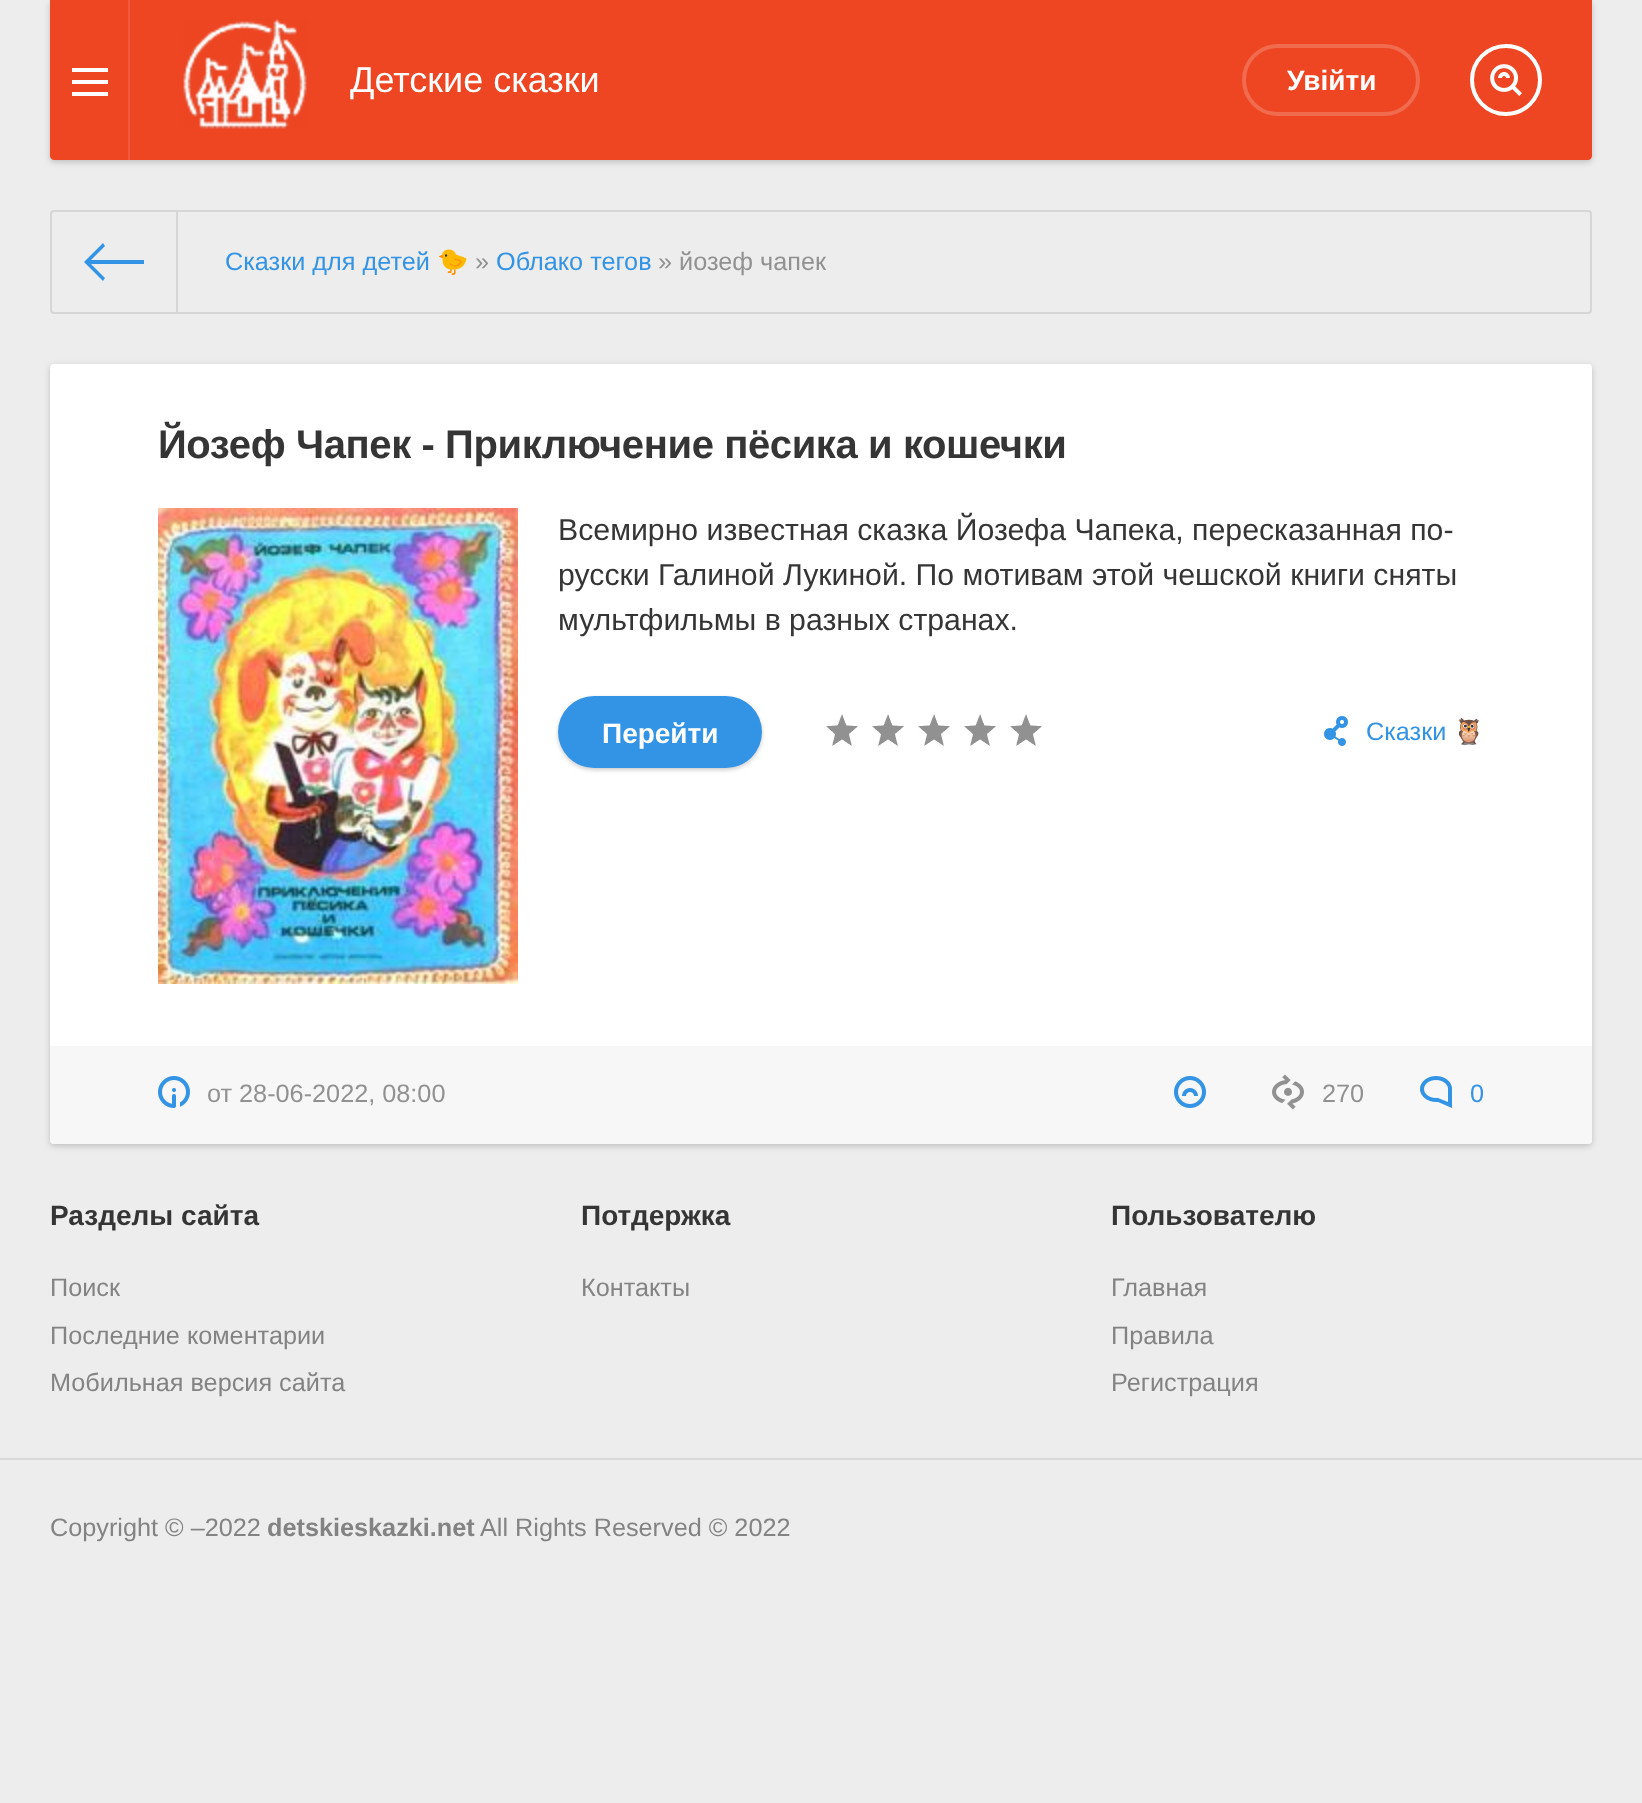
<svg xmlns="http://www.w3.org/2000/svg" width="1642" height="1803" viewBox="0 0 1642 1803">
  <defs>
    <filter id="blur1" x="-50%" y="-200%" width="200%" height="500%"><feGaussianBlur stdDeviation="3"/></filter>
    <filter id="blur2" x="-50%" y="-200%" width="200%" height="500%"><feGaussianBlur stdDeviation="2"/></filter>
  </defs>
  <rect width="100%" height="100%" fill="#ededed"/>
  <rect x="50" y="2" width="1542" height="160" rx="4" fill="#000000" fill-opacity="0.2" filter="url(#blur1)"/>
  <path d="M50 0H1592V156C1592 158 1590 160 1588 160H54C52 160 50 158 50 156Z" fill="#ee4623"/>
  <rect x="128" y="0" width="2" height="160" fill="#f05939"/>
  <rect x="72" y="68" width="36" height="4" fill="#ffffff"/>
  <rect x="72" y="80" width="36" height="4" fill="#ffffff"/>
  <rect x="72" y="92" width="36" height="4" fill="#ffffff"/>
  <image x="183" y="19" width="124" height="110" href="img1.png"/>
  <text x="350" y="92" font-family="Liberation Sans" font-size="36" fill="#ffffff">Детские сказки</text>
  <rect x="1244" y="46" width="174" height="68" rx="34" fill="none" stroke="#f16b4f" stroke-width="4"/>
  <text x="1287" y="90" font-family="Liberation Sans" font-size="28" font-weight="bold" fill="#ffffff">Увійти</text>
  <circle cx="1506" cy="80" r="34" fill="none" stroke="#ffffff" stroke-width="4"/>
  <image x="1490" y="64" width="32" height="32" href="img2.png"/>
  <rect x="51" y="211" width="1540" height="102" rx="3" fill="none" stroke="#d6d6d6" stroke-width="2"/>
  <rect x="176" y="212" width="2" height="100" fill="#d6d6d6"/>
  <path d="M144 264H91L105 278L103 281L84 262L103 243L105 246L91 260H144Z" fill="#3394e6"/>
  <text x="225" y="270" font-family="Liberation Sans" font-size="25.25" fill="#3394e6">Сказки для детей</text>
  <text x="437" y="270" font-family="Noto Color Emoji" font-size="25.25" fill="#3394e6">🐤</text>
  <text x="475" y="270" font-family="Liberation Sans" font-size="25.25" fill="#919191">»</text>
  <text x="496" y="270" font-family="Liberation Sans" font-size="25.25" fill="#3394e6">Облако тегов</text>
  <text x="658" y="270" font-family="Liberation Sans" font-size="25.25" fill="#919191">» йозеф чапек</text>
  <rect x="50" y="366" width="1542" height="780" rx="4" fill="#000000" fill-opacity="0.2" filter="url(#blur1)"/>
  <rect x="50" y="364" width="1542" height="780" rx="4" fill="#ffffff"/>
  <text x="158" y="458" font-family="Liberation Sans" font-size="40" font-weight="bold" letter-spacing="-0.4" fill="#353535">Йозеф Чапек - Приключение пёсика и кошечки</text>
  <image x="158" y="508" width="360" height="476" href="img3.png"/>
  <text x="558" y="540" font-family="Liberation Sans" font-size="30.25" fill="#353535">Всемирно известная сказка Йозефа Чапека, пересказанная по-</text>
  <text x="558" y="585" font-family="Liberation Sans" font-size="30.25" fill="#353535">русски Галиной Лукиной. По мотивам этой чешской книги сняты</text>
  <text x="558" y="630" font-family="Liberation Sans" font-size="30.25" fill="#353535">мультфильмы в разных странах.</text>
  <rect x="558" y="698" width="204" height="72" rx="36" fill="#000000" fill-opacity="0.2" filter="url(#blur2)"/>
  <rect x="558" y="696" width="204" height="72" rx="36" fill="#3394e6"/>
  <text x="602" y="743" font-family="Liberation Sans" font-size="28" font-weight="bold" fill="#ffffff">Перейти</text>
  <image x="826" y="714" width="216" height="32" href="img4.png"/>
  <image x="1324" y="716" width="24" height="30" href="img5.png"/>
  <text x="1366" y="740" font-family="Liberation Sans" font-size="25.25" fill="#3394e6">Сказки</text>
  <text x="1453" y="740" font-family="Noto Color Emoji" font-size="25.25" fill="#3394e6">🦉</text>
  <path d="M50 1046H1592V1140C1592 1142 1590 1144 1588 1144H54C52 1144 50 1142 50 1140Z" fill="#f7f7f7"/>
  <image x="158" y="1076" width="32" height="32" href="img6.png"/>
  <text x="207" y="1102" font-family="Liberation Sans" font-size="25.25" fill="#919191">от 28-06-2022, 08:00</text>
  <image x="1174" y="1076" width="32" height="32" href="img7.png"/>
  <image x="1272" y="1074" width="32" height="36" href="img8.png"/>
  <text x="1322" y="1102" font-family="Liberation Sans" font-size="25.25" fill="#919191">270</text>
  <image x="1420" y="1076" width="32" height="32" href="img9.png"/>
  <text x="1470" y="1102" font-family="Liberation Sans" font-size="25.25" fill="#3394e6">0</text>
  <text x="50" y="1225" font-family="Liberation Sans" font-size="28" font-weight="bold" fill="#353535">Разделы сайта</text>
  <text x="50" y="1296" font-family="Liberation Sans" font-size="25.25" fill="#838383">Поиск</text>
  <text x="50" y="1344" font-family="Liberation Sans" font-size="25.25" fill="#838383">Последние коментарии</text>
  <text x="50" y="1391" font-family="Liberation Sans" font-size="25.25" fill="#838383">Мобильная версия сайта</text>
  <text x="581" y="1225" font-family="Liberation Sans" font-size="28" font-weight="bold" fill="#353535">Потдержка</text>
  <text x="581" y="1296" font-family="Liberation Sans" font-size="25.25" fill="#838383">Контакты</text>
  <text x="1111" y="1225" font-family="Liberation Sans" font-size="28" font-weight="bold" fill="#353535">Пользователю</text>
  <text x="1111" y="1296" font-family="Liberation Sans" font-size="25.25" fill="#838383">Главная</text>
  <text x="1111" y="1344" font-family="Liberation Sans" font-size="25.25" fill="#838383">Правила</text>
  <text x="1111" y="1391" font-family="Liberation Sans" font-size="25.25" fill="#838383">Регистрация</text>
  <rect x="0" y="1458" width="1642" height="2" fill="#d9d9d9"/>
  <text x="50" y="1536" font-family="Liberation Sans" font-size="25.25" fill="#838383">Copyright © –2022</text>
  <text x="267" y="1536" font-family="Liberation Sans" font-size="25.25" font-weight="bold" fill="#838383">detskieskazki.net</text>
  <text x="480" y="1536" font-family="Liberation Sans" font-size="25.25" fill="#838383">All Rights Reserved © 2022</text>
</svg>
